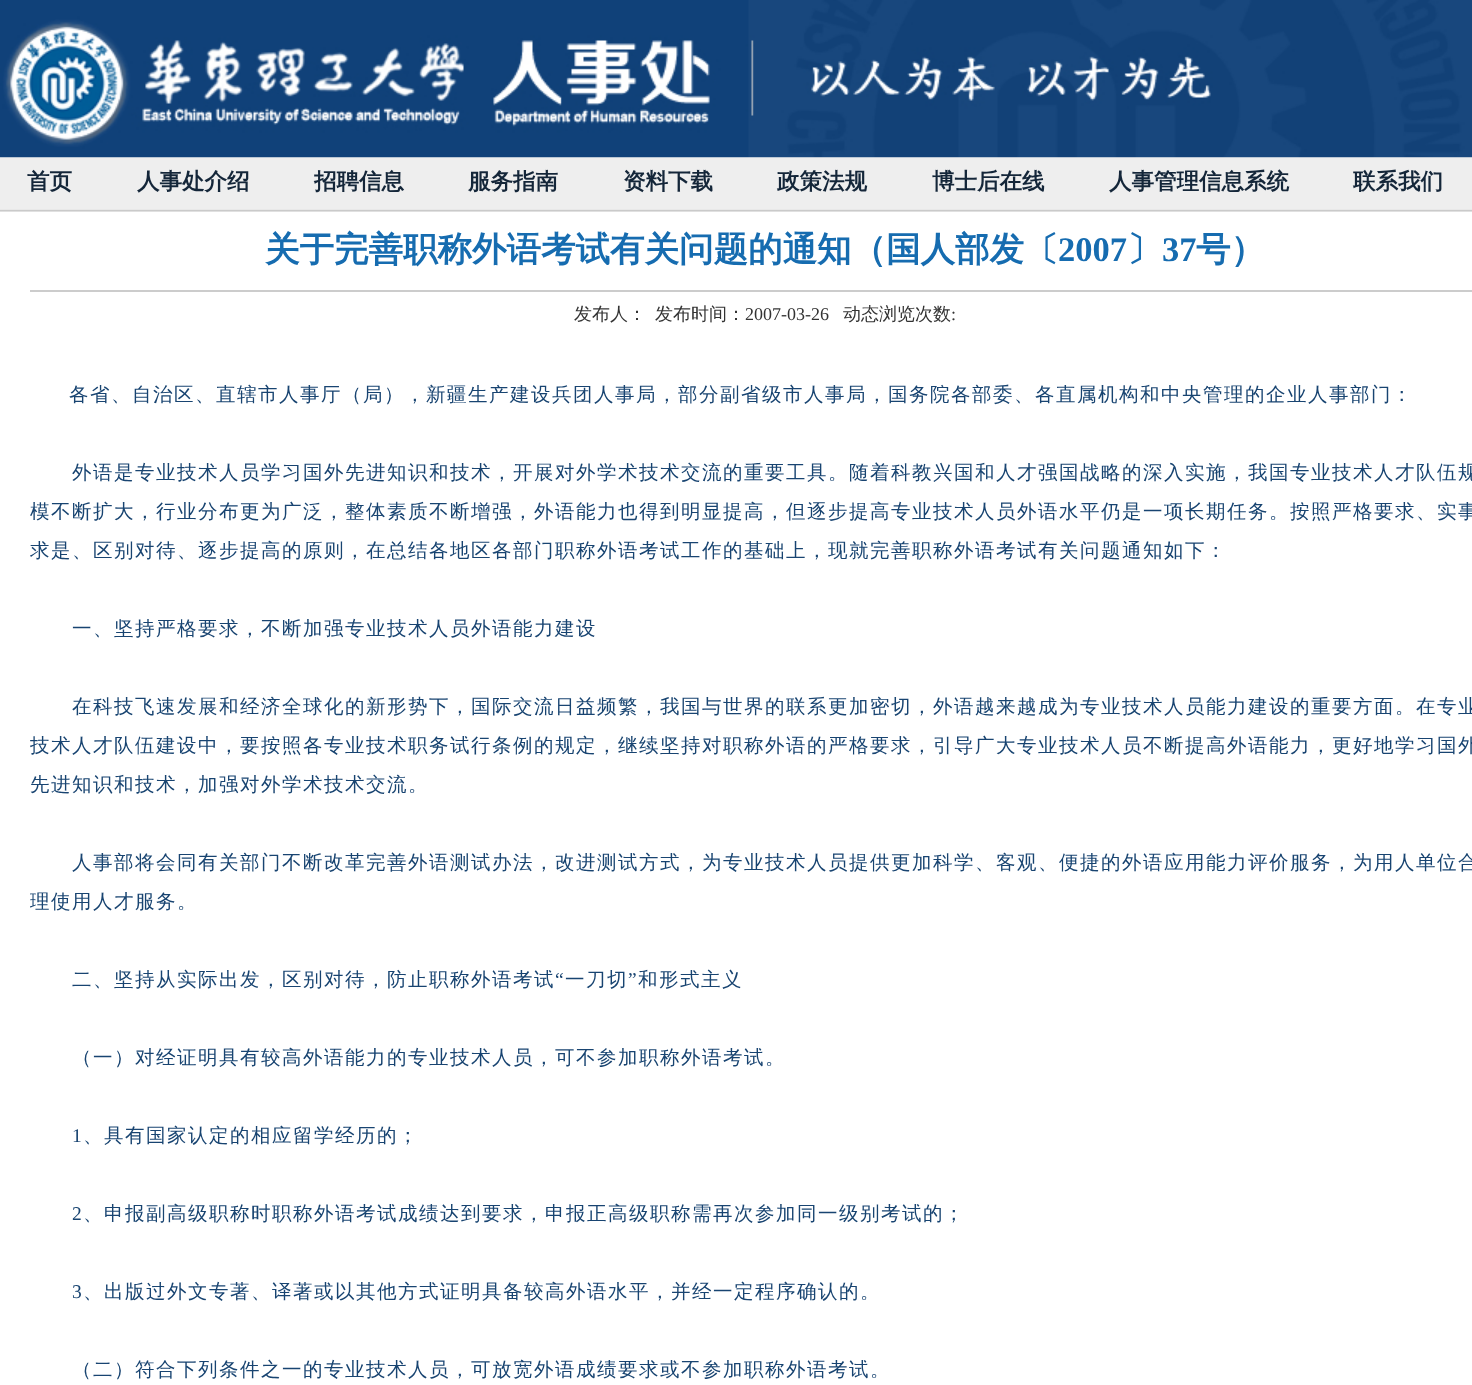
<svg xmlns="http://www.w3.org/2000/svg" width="1472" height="1385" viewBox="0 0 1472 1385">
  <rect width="100%" height="100%" fill="#ffffff"/>
  <image x="0" y="0" width="1472" height="158" href="img1.png"/>
  <image x="0" y="157" width="1472" height="55" href="img2.png"/>
  <text x="27" y="189" font-family="WenQuanYi Zen Hei" font-size="22.5" font-weight="bold" fill="#142639">首页</text>
  <text x="137" y="189" font-family="WenQuanYi Zen Hei" font-size="22.5" font-weight="bold" fill="#142639">人事处介绍</text>
  <text x="314" y="189" font-family="WenQuanYi Zen Hei" font-size="22.5" font-weight="bold" fill="#142639">招聘信息</text>
  <text x="468" y="189" font-family="WenQuanYi Zen Hei" font-size="22.5" font-weight="bold" fill="#142639">服务指南</text>
  <text x="623" y="189" font-family="WenQuanYi Zen Hei" font-size="22.5" font-weight="bold" fill="#142639">资料下载</text>
  <text x="777" y="189" font-family="WenQuanYi Zen Hei" font-size="22.5" font-weight="bold" fill="#142639">政策法规</text>
  <text x="932" y="189" font-family="WenQuanYi Zen Hei" font-size="22.5" font-weight="bold" fill="#142639">博士后在线</text>
  <text x="1109" y="189" font-family="WenQuanYi Zen Hei" font-size="22.5" font-weight="bold" fill="#142639">人事管理信息系统</text>
  <text x="1353" y="189" font-family="WenQuanYi Zen Hei" font-size="22.5" font-weight="bold" fill="#142639">联系我们</text>
  <text x="265" y="261" font-family="WenQuanYi Zen Hei" font-size="34.5" font-weight="bold" fill="#166cb0">关于完善职称外语考试有关问题的通知（国人部发〔</text>
  <text x="1058" y="261" font-family="Liberation Serif" font-size="34.5" font-weight="bold" fill="#166cb0">2007</text>
  <text x="1127" y="261" font-family="WenQuanYi Zen Hei" font-size="34.5" font-weight="bold" fill="#166cb0">〕</text>
  <text x="1162" y="261" font-family="Liberation Serif" font-size="34.5" font-weight="bold" fill="#166cb0">37</text>
  <text x="1196" y="261" font-family="WenQuanYi Zen Hei" font-size="34.5" font-weight="bold" fill="#166cb0">号）</text>
  <rect x="30" y="290" width="1442" height="2" fill="#cccccc"/>
  <text x="574" y="320" font-family="WenQuanYi Zen Hei" font-size="18" font-weight="500" fill="#333333">发布人：</text>
  <text x="655" y="320" font-family="WenQuanYi Zen Hei" font-size="18" font-weight="500" fill="#333333">发布时间：</text>
  <text x="745" y="320" font-family="Liberation Serif" font-size="18" fill="#333333">2007-03-26</text>
  <text x="843" y="320" font-family="WenQuanYi Zen Hei" font-size="18" font-weight="500" fill="#333333">动态浏览次数</text>
  <text x="951" y="320" font-family="Liberation Serif" font-size="18" fill="#333333">:</text>
  <text x="69" y="401" font-family="WenQuanYi Zen Hei" font-size="19.5" font-weight="500" letter-spacing="1.5" fill="#184471">各省、自治区、直辖市人事厅（局），新疆生产建设兵团人事局，部分副省级市人事局，国务院各部委、各直属机构和中央管理的企业人事部门：</text>
  <text x="72" y="479" font-family="WenQuanYi Zen Hei" font-size="19.5" font-weight="500" letter-spacing="1.5" fill="#184471">外语是专业技术人员学习国外先进知识和技术，开展对外学术技术交流的重要工具。随着科教兴国和人才强国战略的深入实施，我国专业技术人才队伍规</text>
  <text x="30" y="518" font-family="WenQuanYi Zen Hei" font-size="19.5" font-weight="500" letter-spacing="1.5" fill="#184471">模不断扩大，行业分布更为广泛，整体素质不断增强，外语能力也得到明显提高，但逐步提高专业技术人员外语水平仍是一项长期任务。按照严格要求、实事</text>
  <text x="30" y="557" font-family="WenQuanYi Zen Hei" font-size="19.5" font-weight="500" letter-spacing="1.5" fill="#184471">求是、区别对待、逐步提高的原则，在总结各地区各部门职称外语考试工作的基础上，现就完善职称外语考试有关问题通知如下：</text>
  <text x="72" y="635" font-family="WenQuanYi Zen Hei" font-size="19.5" font-weight="500" letter-spacing="1.5" fill="#184471">一、坚持严格要求，不断加强专业技术人员外语能力建设</text>
  <text x="72" y="713" font-family="WenQuanYi Zen Hei" font-size="19.5" font-weight="500" letter-spacing="1.5" fill="#184471">在科技飞速发展和经济全球化的新形势下，国际交流日益频繁，我国与世界的联系更加密切，外语越来越成为专业技术人员能力建设的重要方面。在专业</text>
  <text x="30" y="752" font-family="WenQuanYi Zen Hei" font-size="19.5" font-weight="500" letter-spacing="1.5" fill="#184471">技术人才队伍建设中，要按照各专业技术职务试行条例的规定，继续坚持对职称外语的严格要求，引导广大专业技术人员不断提高外语能力，更好地学习国外</text>
  <text x="30" y="791" font-family="WenQuanYi Zen Hei" font-size="19.5" font-weight="500" letter-spacing="1.5" fill="#184471">先进知识和技术，加强对外学术技术交流。</text>
  <text x="72" y="869" font-family="WenQuanYi Zen Hei" font-size="19.5" font-weight="500" letter-spacing="1.5" fill="#184471">人事部将会同有关部门不断改革完善外语测试办法，改进测试方式，为专业技术人员提供更加科学、客观、便捷的外语应用能力评价服务，为用人单位合</text>
  <text x="30" y="908" font-family="WenQuanYi Zen Hei" font-size="19.5" font-weight="500" letter-spacing="1.5" fill="#184471">理使用人才服务。</text>
  <text x="72" y="986" font-family="WenQuanYi Zen Hei" font-size="19.5" font-weight="500" letter-spacing="1.5" fill="#184471">二、坚持从实际出发，区别对待，防止职称外语考试</text>
  <text x="555" y="986" font-family="Liberation Serif" font-size="19.5" letter-spacing="1.5" fill="#184471">“</text>
  <text x="565" y="986" font-family="WenQuanYi Zen Hei" font-size="19.5" font-weight="500" letter-spacing="1.5" fill="#184471">一刀切</text>
  <text x="628" y="986" font-family="Liberation Serif" font-size="19.5" letter-spacing="1.5" fill="#184471">”</text>
  <text x="638" y="986" font-family="WenQuanYi Zen Hei" font-size="19.5" font-weight="500" letter-spacing="1.5" fill="#184471">和形式主义</text>
  <text x="72" y="1064" font-family="WenQuanYi Zen Hei" font-size="19.5" font-weight="500" letter-spacing="1.5" fill="#184471">（一）对经证明具有较高外语能力的专业技术人员，可不参加职称外语考试。</text>
  <text x="72" y="1142" font-family="Liberation Serif" font-size="19.5" letter-spacing="1.5" fill="#184471">1</text>
  <text x="83" y="1142" font-family="WenQuanYi Zen Hei" font-size="19.5" font-weight="500" letter-spacing="1.5" fill="#184471">、具有国家认定的相应留学经历的；</text>
  <text x="72" y="1220" font-family="Liberation Serif" font-size="19.5" letter-spacing="1.5" fill="#184471">2</text>
  <text x="83" y="1220" font-family="WenQuanYi Zen Hei" font-size="19.5" font-weight="500" letter-spacing="1.5" fill="#184471">、申报副高级职称时职称外语考试成绩达到要求，申报正高级职称需再次参加同一级别考试的；</text>
  <text x="72" y="1298" font-family="Liberation Serif" font-size="19.5" letter-spacing="1.5" fill="#184471">3</text>
  <text x="83" y="1298" font-family="WenQuanYi Zen Hei" font-size="19.5" font-weight="500" letter-spacing="1.5" fill="#184471">、出版过外文专著、译著或以其他方式证明具备较高外语水平，并经一定程序确认的。</text>
  <text x="72" y="1376" font-family="WenQuanYi Zen Hei" font-size="19.5" font-weight="500" letter-spacing="1.5" fill="#184471">（二）符合下列条件之一的专业技术人员，可放宽外语成绩要求或不参加职称外语考试。</text>
</svg>
